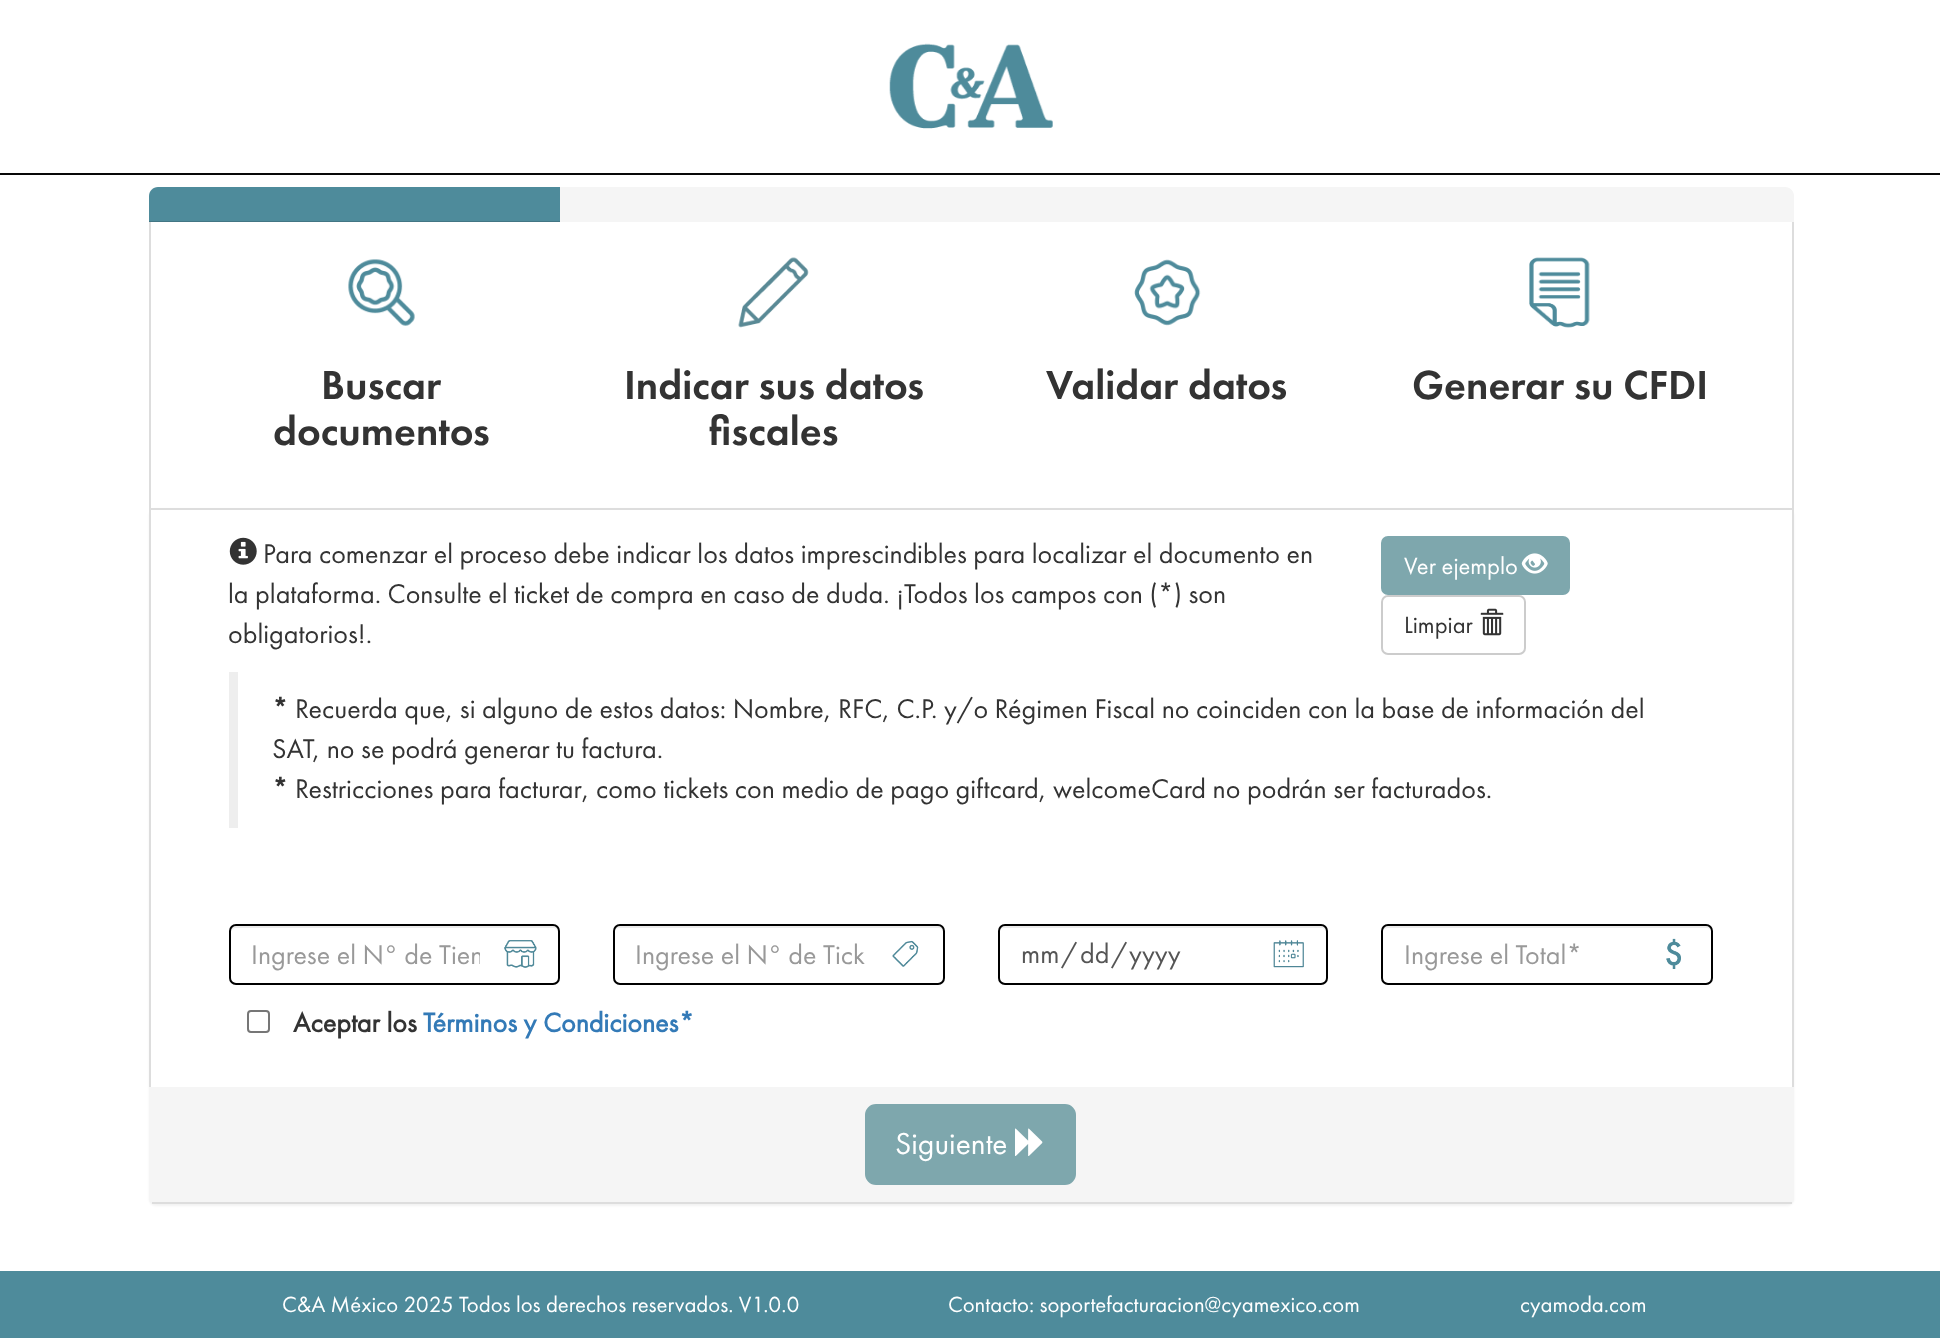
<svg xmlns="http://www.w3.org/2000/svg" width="1940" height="1338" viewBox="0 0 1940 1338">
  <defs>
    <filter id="blur1" x="-50%" y="-200%" width="200%" height="500%"><feGaussianBlur stdDeviation="1"/></filter>
    <clipPath id="clip1"><rect x="252" y="936" width="228" height="37"/></clipPath>
  </defs>
  <rect width="100%" height="100%" fill="#ffffff"/>
  <rect x="0" y="173" width="1940" height="2" fill="#080808"/>
  <image x="889" y="43" width="164" height="86" href="img1.png"/>
  <path d="M158 187H1785C1790 187 1794 191 1794 196V222H149V196C149 191 153 187 158 187Z" fill="#f5f5f5"/>
  <path d="M158 187H560V222H149V196C149 191 153 187 158 187Z" fill="#4e8b9b"/>
  <rect x="149" y="221" width="411" height="1" fill="#427684"/>
  <rect x="1792" y="222" width="2" height="286" fill="#dddddd"/>
  <rect x="149" y="222" width="2" height="286" fill="#dddddd"/>
  <image x="348" y="259" width="67" height="67" href="img2.png"/>
  <text x="321" y="399" font-family="Futura PT" font-size="42" font-weight="500" fill="#333333">Buscar</text>
  <text x="273" y="445" font-family="Futura PT" font-size="42" font-weight="500" fill="#333333">documentos</text>
  <image x="738" y="257" width="71" height="71" href="img3.png"/>
  <text x="624" y="399" font-family="Futura PT" font-size="42" font-weight="500" fill="#333333">Indicar sus datos</text>
  <text x="709" y="445" font-family="Futura PT" font-size="42" font-weight="500" fill="#333333">fiscales</text>
  <image x="1134" y="259" width="67" height="67" href="img4.png"/>
  <text x="1046" y="399" font-family="Futura PT" font-size="42" font-weight="500" fill="#333333">Validar datos</text>
  <image x="1529" y="257" width="61" height="71" href="img5.png"/>
  <text x="1412" y="399" font-family="Futura PT" font-size="42" font-weight="500" fill="#333333">Generar su CFDI</text>
  <rect x="149" y="509" width="1645" height="697" rx="7" fill="#000000" fill-opacity="0.05" filter="url(#blur1)"/>
  <rect x="149" y="508" width="1645" height="696" rx="7" fill="#ffffff"/>
  <rect x="149" y="508" width="1645" height="2" fill="#dddddd"/>
  <rect x="1792" y="508" width="2" height="579" fill="#dddddd"/>
  <rect x="149" y="508" width="2" height="579" fill="#dddddd"/>
  <image x="229" y="537" width="28" height="28" href="img6.png"/>
  <text x="263" y="563" font-family="Futura PT" font-size="28" fill="#333333">Para comenzar el proceso debe indicar los datos imprescindibles para localizar el documento en</text>
  <text x="228" y="603" font-family="Futura PT" font-size="28" fill="#333333">la plataforma. Consulte el ticket de compra en caso de duda. ¡Todos los campos con (*) son</text>
  <text x="228" y="643" font-family="Futura PT" font-size="28" fill="#333333">obligatorios!.</text>
  <rect x="1382" y="537" width="187" height="57" rx="6" fill="#7ea7ad" stroke="#7ea7ad" stroke-width="2"/>
  <text x="1404" y="574" font-family="Futura PT" font-size="24.5" fill="#ffffff">Ver ejemplo</text>
  <image x="1521" y="553" width="27" height="21" href="img7.png"/>
  <rect x="1382" y="596" width="143" height="58" rx="6" fill="none" stroke="#cccccc" stroke-width="2"/>
  <text x="1404" y="633" font-family="Futura PT" font-size="24.5" fill="#333333">Limpiar</text>
  <image x="1480" y="608" width="24" height="28" href="img8.png"/>
  <rect x="229" y="672" width="9" height="156" fill="#eeeeee"/>
  <text x="272" y="718" font-family="Futura PT" font-size="28" font-weight="bold" fill="#333333">*</text>
  <text x="295" y="718" font-family="Futura PT" font-size="28" fill="#333333">Recuerda que, si alguno de estos datos: Nombre, RFC, C.P. y/o Régimen Fiscal no coinciden con la base de información del</text>
  <text x="272" y="758" font-family="Futura PT" font-size="28" fill="#333333">SAT, no se podrá generar tu factura.</text>
  <text x="272" y="798" font-family="Futura PT" font-size="28" font-weight="bold" fill="#333333">*</text>
  <text x="295" y="798" font-family="Futura PT" font-size="28" fill="#333333">Restricciones para facturar, como tickets con medio de pago giftcard, welcomeCard no podrán ser facturados.</text>
  <path d="M236 928H553C556 928 558 930 558 933V931C558 928 556 926 553 926H236C233 926 231 928 231 931V933C231 930 233 928 236 928Z" fill="#ececec"/>
  <rect x="230" y="925" width="329" height="59" rx="6" fill="none" stroke="#000000" stroke-width="2"/>
  <g clip-path="url(#clip1)">
    <text x="251" y="964" font-family="Futura PT" font-size="28" fill="#999999">Ingrese el N° de Tien</text>
  </g>
  <image x="504" y="940" width="33" height="28" href="img9.png"/>
  <path d="M620 928H938C941 928 943 930 943 933V931C943 928 941 926 938 926H619C616 926 614 928 614 931V933C614 930 617 928 620 928Z" fill="#ececec"/>
  <rect x="614" y="925" width="330" height="59" rx="6" fill="none" stroke="#000000" stroke-width="2"/>
  <text x="635" y="964" font-family="Futura PT" font-size="28" fill="#999999">Ingrese el N° de Tick</text>
  <image x="892" y="940" width="27" height="27" href="img10.png"/>
  <path d="M1004 928H1321C1324 928 1326 930 1326 933V980L1325 983C1326 982 1327 980 1327 979V931C1327 928 1325 926 1322 926H1004C1001 926 999 928 999 931V933C999 930 1002 928 1004 928Z" fill="#ececec"/>
  <rect x="999" y="925" width="328" height="59" rx="6" fill="none" stroke="#000000" stroke-width="2"/>
  <text x="1021" y="963" font-family="Futura PT" font-size="28" fill="#555555">mm</text>
  <text x="1061" y="963" font-family="Futura PT" font-size="28" fill="#555555">/</text>
  <text x="1080" y="963" font-family="Futura PT" font-size="28" fill="#555555">dd</text>
  <text x="1111" y="963" font-family="Futura PT" font-size="28" fill="#555555">/</text>
  <text x="1129" y="963" font-family="Futura PT" font-size="28" fill="#555555">yyyy</text>
  <image x="1273" y="940" width="31" height="28" href="img11.png"/>
  <path d="M1388 928H1706C1709 928 1712 930 1712 933V931C1712 928 1710 926 1707 926H1388C1386 926 1383 928 1383 930C1384 929 1386 928 1388 928Z" fill="#ececec"/>
  <rect x="1382" y="925" width="330" height="59" rx="6" fill="none" stroke="#000000" stroke-width="2"/>
  <text x="1404" y="964" font-family="Futura PT" font-size="28" fill="#999999">Ingrese el Total*</text>
  <image x="1666" y="938" width="15" height="31" href="img12.png"/>
  <rect x="248" y="1011" width="21" height="21" rx="3" fill="none" stroke="#767676" stroke-width="2"/>
  <text x="293" y="1032" font-family="Futura PT" font-size="28" font-weight="bold" fill="#333333">Aceptar los</text>
  <text x="423" y="1032" font-family="Futura PT" font-size="28" font-weight="bold" fill="#337ab7">Términos y Condiciones*</text>
  <path d="M149 1087H1794V1199C1794 1202 1792 1204 1789 1204H154C151 1204 149 1202 149 1199Z" fill="#f5f5f5"/>
  <rect x="152" y="1202" width="1640" height="2" fill="#dddddd"/>
  <rect x="866" y="1105" width="209" height="79" rx="10" fill="#7ea7ad" stroke="#7ea7ad" stroke-width="2"/>
  <text x="895" y="1154" font-family="Futura PT" font-size="31.5" fill="#ffffff">Siguiente</text>
  <image x="1015" y="1128" width="28" height="28" href="img13.png"/>
  <rect x="0" y="1271" width="1940" height="67" fill="#4e8b9b"/>
  <text x="282" y="1312" font-family="Futura PT" font-size="22.75" fill="#ffffff">C&amp;A México 2025 Todos los derechos reservados. V1.0.0</text>
  <text x="948" y="1312" font-family="Futura PT" font-size="22.75" fill="#ffffff">Contacto: soportefacturacion@cyamexico.com</text>
  <text x="1520" y="1312" font-family="Futura PT" font-size="22.75" fill="#ffffff">cyamoda.com</text>
</svg>
